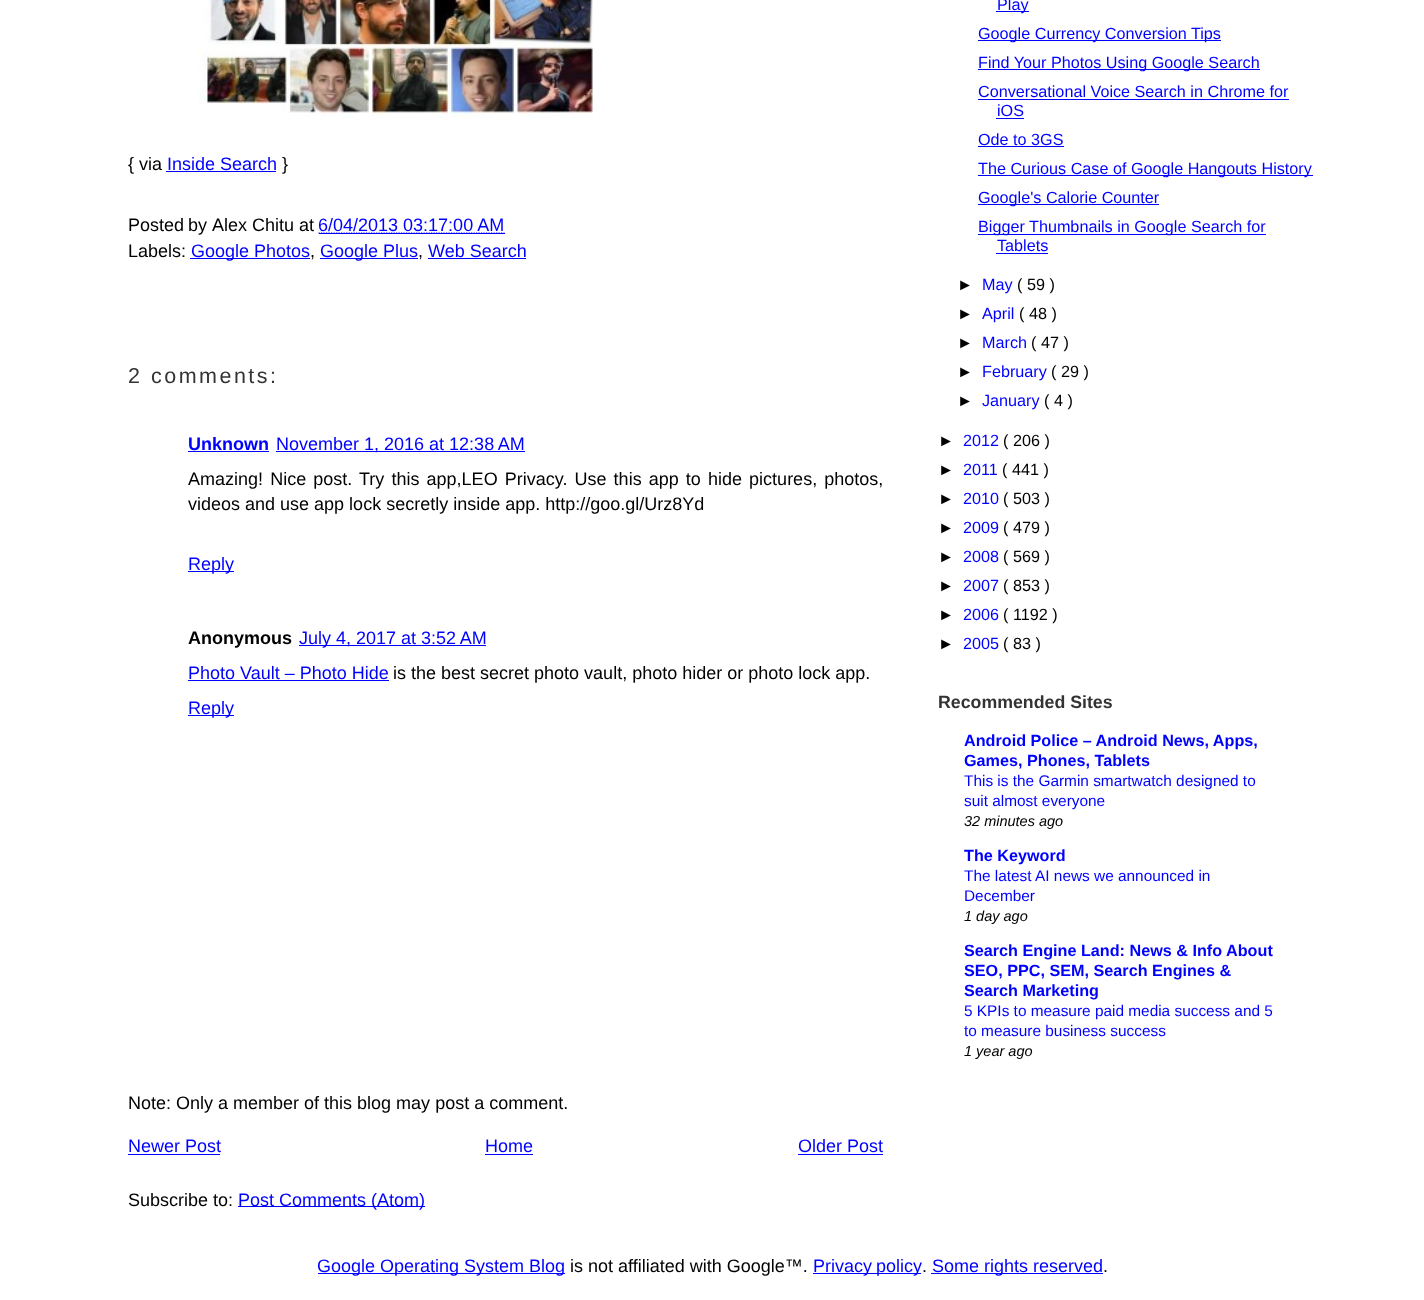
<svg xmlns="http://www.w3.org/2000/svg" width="1424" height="1300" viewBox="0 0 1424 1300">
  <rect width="100%" height="100%" fill="#ffffff"/>
  <image x="198" y="0" width="395" height="118" href="img1.png"/>
  <text x="128" y="170" font-family="Liberation Sans" font-size="18" fill="#000000">{ via</text>
  <text x="167" y="170" font-family="Liberation Sans" font-size="18" fill="#0000ff">Inside Search</text>
  <rect x="166" y="171" width="110" height="1" fill="#0000ff"/>
  <text x="282" y="170" font-family="Liberation Sans" font-size="18" fill="#000000">}</text>
  <text x="128" y="231" word-spacing="-1" font-family="Liberation Sans" font-size="18" fill="#000000">Posted by</text>
  <text x="212" y="231" font-family="Liberation Sans" font-size="18" fill="#000000">Alex Chitu at</text>
  <text x="318" y="231" font-family="Liberation Sans" font-size="18" fill="#0000ff">6/04/2013 03:17:00 AM</text>
  <path d="M318.5 233H504.5" fill="none" stroke="#0000ff" stroke-width="1.2" stroke-dasharray="1.25 1.25"/>
  <rect x="319" y="233" width="186" height="1" fill="#0000ff"/>
  <text x="128" y="257" font-family="Liberation Sans" font-size="18" fill="#000000">Labels:</text>
  <rect x="190" y="258" width="120" height="1" fill="#0000ff"/>
  <text x="191" y="257" font-family="Liberation Sans" font-size="18" fill="#0000ff">Google Photos</text>
  <text x="310" y="257" font-family="Liberation Sans" font-size="18" fill="#000000">,</text>
  <rect x="320" y="258" width="98" height="1" fill="#0000ff"/>
  <text x="320" y="257" font-family="Liberation Sans" font-size="18" fill="#0000ff">Google Plus</text>
  <text x="418" y="257" font-family="Liberation Sans" font-size="18" fill="#000000">,</text>
  <rect x="428" y="258" width="98" height="1" fill="#0000ff"/>
  <text x="428" y="257" font-family="Liberation Sans" font-size="18" fill="#0000ff">Web Search</text>
  <text x="128" y="383" font-family="Liberation Sans" font-size="21.5" letter-spacing="2.5" fill="#333333">2 comments:</text>
  <text x="188" y="450" font-family="Liberation Sans" font-size="18" font-weight="bold" fill="#0000ff">Unknown</text>
  <rect x="188" y="451" width="81" height="1" fill="#0000ff"/>
  <rect x="276" y="451" width="249" height="1" fill="#0000ff"/>
  <text x="276" y="450" font-family="Liberation Sans" font-size="18" fill="#0000ff">November 1, 2016 at 12:38 AM</text>
  <text x="188" y="485" word-spacing="2.1" font-family="Liberation Sans" font-size="18" fill="#000000">Amazing! Nice post. Try this app,LEO Privacy. Use this app to hide pictures, photos,</text>
  <text x="188" y="510" font-family="Liberation Sans" font-size="18" fill="#000000">videos and use app lock secretly inside app. http://goo.gl/Urz8Yd</text>
  <rect x="188" y="571" width="46" height="1" fill="#0000ff"/>
  <text x="188" y="570" font-family="Liberation Sans" font-size="18" fill="#0000ff">Reply</text>
  <text x="188" y="644" font-family="Liberation Sans" font-size="18" font-weight="bold" fill="#000000">Anonymous</text>
  <rect x="299" y="645" width="187" height="1" fill="#0000ff"/>
  <text x="299" y="644" font-family="Liberation Sans" font-size="18" fill="#0000ff">July 4, 2017 at 3:52 AM</text>
  <text x="188" y="679" font-family="Liberation Sans" font-size="18" fill="#0000ff">Photo Vault – Photo Hide</text>
  <rect x="188" y="680" width="201" height="1" fill="#0000ff"/>
  <text x="393" y="679" font-family="Liberation Sans" font-size="18" fill="#000000">is the best secret photo vault, photo hider or photo lock app.</text>
  <rect x="188" y="715" width="46" height="1" fill="#0000ff"/>
  <text x="188" y="714" font-family="Liberation Sans" font-size="18" fill="#0000ff">Reply</text>
  <text x="128" y="1109" font-family="Liberation Sans" font-size="18" fill="#000000">Note: Only a member of this blog may post a comment.</text>
  <text x="128" y="1152" font-family="Liberation Sans" font-size="18" fill="#0000ff">Newer Post</text>
  <rect x="128" y="1154" width="92" height="1" fill="#0000ff"/>
  <text x="485" y="1152" font-family="Liberation Sans" font-size="18" fill="#0000ff">Home</text>
  <rect x="485" y="1154" width="48" height="1" fill="#0000ff"/>
  <text x="798" y="1152" font-family="Liberation Sans" font-size="18" fill="#0000ff">Older Post</text>
  <rect x="798" y="1154" width="85" height="1" fill="#0000ff"/>
  <text x="128" y="1206" font-family="Liberation Sans" font-size="18" fill="#000000">Subscribe to:</text>
  <rect x="238" y="1206" width="187" height="1" fill="#0000ff"/>
  <text x="238" y="1206" font-family="Liberation Sans" font-size="18" fill="#0000ff">Post Comments (Atom)</text>
  <rect x="996" y="11" width="33" height="1" fill="#0000ff"/>
  <text x="997" y="10" font-family="Liberation Sans" font-size="16.2" fill="#0000ff">Play</text>
  <rect x="978" y="40" width="243" height="1" fill="#0000ff"/>
  <text x="978" y="39" font-family="Liberation Sans" font-size="16.2" fill="#0000ff">Google Currency Conversion Tips</text>
  <rect x="978" y="69" width="282" height="1" fill="#0000ff"/>
  <text x="978" y="68" font-family="Liberation Sans" font-size="16.2" fill="#0000ff">Find Your Photos Using Google Search</text>
  <text x="978" y="97" font-family="Liberation Sans" font-size="16.2" fill="#0000ff">Conversational Voice Search in Chrome for</text>
  <rect x="978" y="99" width="311" height="1" fill="#0000ff"/>
  <text x="997" y="116" font-family="Liberation Sans" font-size="16.2" fill="#0000ff">iOS</text>
  <rect x="996" y="118" width="28" height="1" fill="#0000ff"/>
  <text x="978" y="145" font-family="Liberation Sans" font-size="16.2" fill="#0000ff">Ode to 3GS</text>
  <rect x="978" y="146" width="86" height="1" fill="#0000ff"/>
  <rect x="978" y="175" width="335" height="1" fill="#0000ff"/>
  <text x="978" y="174" font-family="Liberation Sans" font-size="16.2" fill="#0000ff">The Curious Case of Google Hangouts History</text>
  <rect x="978" y="204" width="181" height="1" fill="#0000ff"/>
  <text x="978" y="203" font-family="Liberation Sans" font-size="16.2" fill="#0000ff">Google's Calorie Counter</text>
  <rect x="978" y="234" width="288" height="1" fill="#0000ff"/>
  <text x="978" y="232" font-family="Liberation Sans" font-size="16.2" fill="#0000ff">Bigger Thumbnails in Google Search for</text>
  <text x="997" y="251" font-family="Liberation Sans" font-size="16.2" fill="#0000ff">Tablets</text>
  <rect x="996" y="253" width="52" height="1" fill="#0000ff"/>
  <text x="957" y="290" font-family="Liberation Sans" font-size="16.2" fill="#000000">►</text>
  <text x="982" y="290" font-family="Liberation Sans" font-size="16.2" fill="#0000ff">May</text>
  <text x="1017" y="290" font-family="Liberation Sans" font-size="16.2" fill="#000000">( 59 )</text>
  <text x="957" y="319" font-family="Liberation Sans" font-size="16.2" fill="#000000">►</text>
  <text x="982" y="319" font-family="Liberation Sans" font-size="16.2" fill="#0000ff">April</text>
  <text x="1019" y="319" font-family="Liberation Sans" font-size="16.2" fill="#000000">( 48 )</text>
  <text x="957" y="348" font-family="Liberation Sans" font-size="16.2" fill="#000000">►</text>
  <text x="982" y="348" font-family="Liberation Sans" font-size="16.2" fill="#0000ff">March</text>
  <text x="1031" y="348" font-family="Liberation Sans" font-size="16.2" fill="#000000">( 47 )</text>
  <text x="957" y="377" font-family="Liberation Sans" font-size="16.2" fill="#000000">►</text>
  <text x="982" y="377" font-family="Liberation Sans" font-size="16.2" fill="#0000ff">February</text>
  <text x="1051" y="377" font-family="Liberation Sans" font-size="16.2" fill="#000000">( 29 )</text>
  <text x="957" y="406" font-family="Liberation Sans" font-size="16.2" fill="#000000">►</text>
  <text x="982" y="406" font-family="Liberation Sans" font-size="16.2" fill="#0000ff">January</text>
  <text x="1044" y="406" font-family="Liberation Sans" font-size="16.2" fill="#000000">( 4 )</text>
  <text x="938" y="446" font-family="Liberation Sans" font-size="16.2" fill="#000000">►</text>
  <text x="963" y="446" font-family="Liberation Sans" font-size="16.2" fill="#0000ff">2012</text>
  <text x="1003" y="446" font-family="Liberation Sans" font-size="16.2" fill="#000000">( 206 )</text>
  <text x="938" y="475" font-family="Liberation Sans" font-size="16.2" fill="#000000">►</text>
  <text x="963" y="475" font-family="Liberation Sans" font-size="16.2" fill="#0000ff">2011</text>
  <text x="1002" y="475" font-family="Liberation Sans" font-size="16.2" fill="#000000">( 441 )</text>
  <text x="938" y="504" font-family="Liberation Sans" font-size="16.2" fill="#000000">►</text>
  <text x="963" y="504" font-family="Liberation Sans" font-size="16.2" fill="#0000ff">2010</text>
  <text x="1003" y="504" font-family="Liberation Sans" font-size="16.2" fill="#000000">( 503 )</text>
  <text x="938" y="533" font-family="Liberation Sans" font-size="16.2" fill="#000000">►</text>
  <text x="963" y="533" font-family="Liberation Sans" font-size="16.2" fill="#0000ff">2009</text>
  <text x="1003" y="533" font-family="Liberation Sans" font-size="16.2" fill="#000000">( 479 )</text>
  <text x="938" y="562" font-family="Liberation Sans" font-size="16.2" fill="#000000">►</text>
  <text x="963" y="562" font-family="Liberation Sans" font-size="16.2" fill="#0000ff">2008</text>
  <text x="1003" y="562" font-family="Liberation Sans" font-size="16.2" fill="#000000">( 569 )</text>
  <text x="938" y="591" font-family="Liberation Sans" font-size="16.2" fill="#000000">►</text>
  <text x="963" y="591" font-family="Liberation Sans" font-size="16.2" fill="#0000ff">2007</text>
  <text x="1003" y="591" font-family="Liberation Sans" font-size="16.2" fill="#000000">( 853 )</text>
  <text x="938" y="620" font-family="Liberation Sans" font-size="16.2" fill="#000000">►</text>
  <text x="963" y="620" font-family="Liberation Sans" font-size="16.2" fill="#0000ff">2006</text>
  <text x="1003" y="620" font-family="Liberation Sans" font-size="16.2" fill="#000000">( 1192 )</text>
  <text x="938" y="649" font-family="Liberation Sans" font-size="16.2" fill="#000000">►</text>
  <text x="963" y="649" font-family="Liberation Sans" font-size="16.2" fill="#0000ff">2005</text>
  <text x="1003" y="649" font-family="Liberation Sans" font-size="16.2" fill="#000000">( 83 )</text>
  <text x="938" y="708" font-family="Liberation Sans" font-size="17.75" font-weight="bold" fill="#333333">Recommended Sites</text>
  <text x="964" y="746" font-family="Liberation Sans" font-size="16.2" font-weight="bold" fill="#0000ff">Android Police – Android News, Apps,</text>
  <text x="964" y="766" font-family="Liberation Sans" font-size="16.2" font-weight="bold" fill="#0000ff">Games, Phones, Tablets</text>
  <text x="964" y="786" font-family="Liberation Sans" font-size="15.4" fill="#0000ff">This is the Garmin smartwatch designed to</text>
  <text x="964" y="806" font-family="Liberation Sans" font-size="15.4" fill="#0000ff">suit almost everyone</text>
  <text x="964" y="826" font-family="Liberation Sans" font-size="14.5" font-style="italic" fill="#000000">32 minutes ago</text>
  <text x="964" y="861" font-family="Liberation Sans" font-size="16.2" font-weight="bold" fill="#0000ff">The Keyword</text>
  <text x="964" y="881" font-family="Liberation Sans" font-size="15.4" fill="#0000ff">The latest AI news we announced in</text>
  <text x="964" y="901" font-family="Liberation Sans" font-size="15.4" fill="#0000ff">December</text>
  <text x="964" y="921" font-family="Liberation Sans" font-size="14.5" font-style="italic" fill="#000000">1 day ago</text>
  <text x="964" y="956" font-family="Liberation Sans" font-size="16.2" font-weight="bold" fill="#0000ff">Search Engine Land: News &amp; Info About</text>
  <text x="964" y="976" font-family="Liberation Sans" font-size="16.2" font-weight="bold" fill="#0000ff">SEO, PPC, SEM, Search Engines &amp;</text>
  <text x="964" y="996" font-family="Liberation Sans" font-size="16.2" font-weight="bold" fill="#0000ff">Search Marketing</text>
  <text x="964" y="1016" font-family="Liberation Sans" font-size="15.4" fill="#0000ff">5 KPIs to measure paid media success and 5</text>
  <text x="964" y="1036" font-family="Liberation Sans" font-size="15.4" fill="#0000ff">to measure business success</text>
  <text x="964" y="1056" font-family="Liberation Sans" font-size="14.5" font-style="italic" fill="#000000">1 year ago</text>
  <rect x="318" y="1273" width="247" height="1" fill="#0000ff"/>
  <text x="317" y="1272" font-family="Liberation Sans" font-size="18" fill="#0000ff">Google Operating System Blog</text>
  <text x="570" y="1272" font-family="Liberation Sans" font-size="18" fill="#000000">is not affiliated with Google™.</text>
  <rect x="813" y="1273" width="108" height="1" fill="#0000ff"/>
  <text x="813" y="1272" word-spacing="-1" font-family="Liberation Sans" font-size="18" fill="#0000ff">Privacy policy</text>
  <text x="922" y="1272" font-family="Liberation Sans" font-size="18" fill="#000000">.</text>
  <rect x="931" y="1273" width="172" height="1" fill="#0000ff"/>
  <text x="932" y="1272" font-family="Liberation Sans" font-size="18" fill="#0000ff">Some rights reserved</text>
  <text x="1103" y="1272" font-family="Liberation Sans" font-size="18" fill="#000000">.</text>
</svg>
